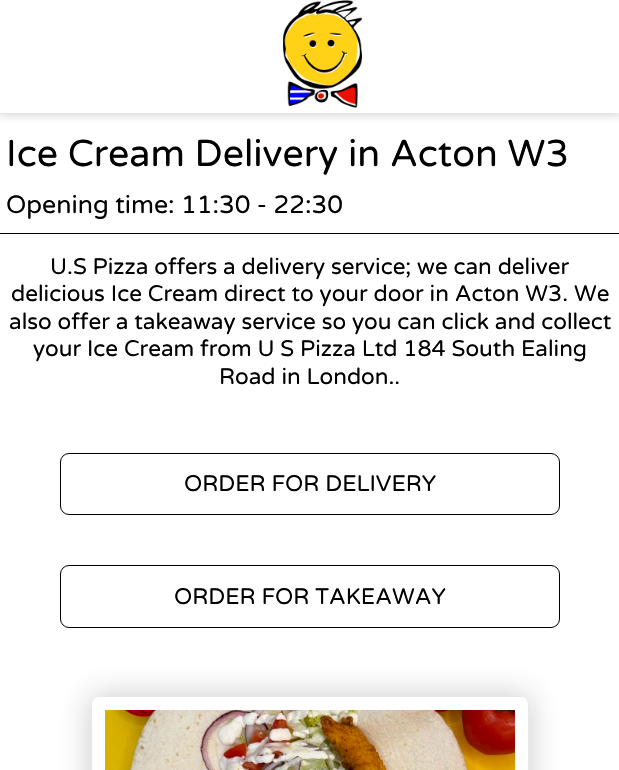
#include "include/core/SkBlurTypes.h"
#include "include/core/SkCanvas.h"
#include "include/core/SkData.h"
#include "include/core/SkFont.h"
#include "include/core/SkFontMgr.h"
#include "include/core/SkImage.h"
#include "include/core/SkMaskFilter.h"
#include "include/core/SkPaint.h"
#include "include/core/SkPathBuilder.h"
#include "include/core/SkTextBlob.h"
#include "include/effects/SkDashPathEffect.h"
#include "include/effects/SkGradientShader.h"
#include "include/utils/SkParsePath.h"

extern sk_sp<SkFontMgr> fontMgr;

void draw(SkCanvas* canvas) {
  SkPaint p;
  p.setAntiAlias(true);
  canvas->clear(SK_ColorWHITE);
  p.setColor(SkColorSetARGB(64, 53, 53, 53));
  p.setMaskFilter(SkMaskFilter::MakeBlur(kNormal_SkBlurStyle, 5));
  canvas->drawRect(SkRect::MakeLTRB(-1, -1, 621, 114), p);
  p.setMaskFilter(nullptr);
  p.setColor(SK_ColorWHITE);
  canvas->drawRect(SkRect::MakeLTRB(0, 0, 619, 113), p);
  canvas->drawImageRect(SkImages::DeferredFromEncodedData(SkData::MakeFromFileName("images/1.png")), SkRect::MakeLTRB(283, 0, 362, 108), SkSamplingOptions());
  p.setColor(SK_ColorBLACK);
  canvas->drawRect(SkRect::MakeLTRB(0, 233, 619, 234), p);
  p.setStyle(SkPaint::kStroke_Style);
  p.setStrokeWidth(1);
  canvas->drawRoundRect(SkRect::MakeLTRB(60.5f, 453.5f, 559.5f, 514.5f), 8.5f, 8.5f, p);
  canvas->drawRoundRect(SkRect::MakeLTRB(60.5f, 565.5f, 559.5f, 627.5f), 8.5f, 8.5f, p);
  p.setStyle(SkPaint::kFill_Style);
  p.setColor(SkColorSetARGB(64, 53, 53, 53));
  p.setMaskFilter(SkMaskFilter::MakeBlur(kNormal_SkBlurStyle, 15.5f));
  canvas->drawRoundRect(SkRect::MakeLTRB(90, 695, 530, 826), 9, 9, p);
  p.setMaskFilter(nullptr);
  p.setColor(SK_ColorWHITE);
  canvas->drawPath(SkPathBuilder().moveTo(99, 696).lineTo(521, 696).cubicTo(525.5f, 696, 529, 699.5f, 529, 704).lineTo(529, 770).lineTo(91, 770).lineTo(91, 704).cubicTo(91, 699.5f, 94.5f, 696, 99, 696).close().detach(), p);
  p.setStyle(SkPaint::kStroke_Style);
  p.setColor(SkColorSetRGB(232, 232, 232));
  canvas->drawRoundRect(SkRect::MakeLTRB(91.5f, 696.5f, 528.5f, 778.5f), 7.5f, 7.5f, p);
  canvas->drawImageRect(SkImages::DeferredFromEncodedData(SkData::MakeFromFileName("images/2.png")), SkRect::MakeLTRB(105, 710, 515, 770), SkSamplingOptions());
  SkFont font1(fontMgr->matchFamilyStyle("Varela Round", SkFontStyle::Normal()), 37.5f);
  font1.setSubpixel(true);
  p.setStyle(SkPaint::kFill_Style);
  p.setColor(SK_ColorBLACK);
  canvas->drawString("Ice Cream Delivery in Acton W3", 6, 166, font1, p);
  SkFont font2(fontMgr->matchFamilyStyle("Varela Round", SkFontStyle::Normal()), 25);
  font2.setSubpixel(true);
  canvas->drawString("Opening time: 11:30 - 22:30", 6, 213, font2, p);
  SkFont font3(fontMgr->matchFamilyStyle("Varela Round", SkFontStyle::Normal()), 22.5f);
  font3.setSubpixel(true);
  canvas->drawString("U.S Pizza offers a delivery service; we can deliver", 50, 274, font3, p);
  canvas->drawString("delicious Ice Cream direct to your door in Acton W3. We", 11, 301, font3, p);
  canvas->drawString("also offer a takeaway service so you can click and collect", 9, 329, font3, p);
  canvas->drawString("your Ice Cream from U S Pizza Ltd 184 South Ealing", 33, 356, font3, p);
  canvas->drawString("Road in London..", 219, 384, font3, p);
  canvas->drawString("ORDER FOR DELIVERY", 184, 491, font3, p);
  canvas->drawString("ORDER FOR TAKEAWAY", 174, 604, font3, p);
}
